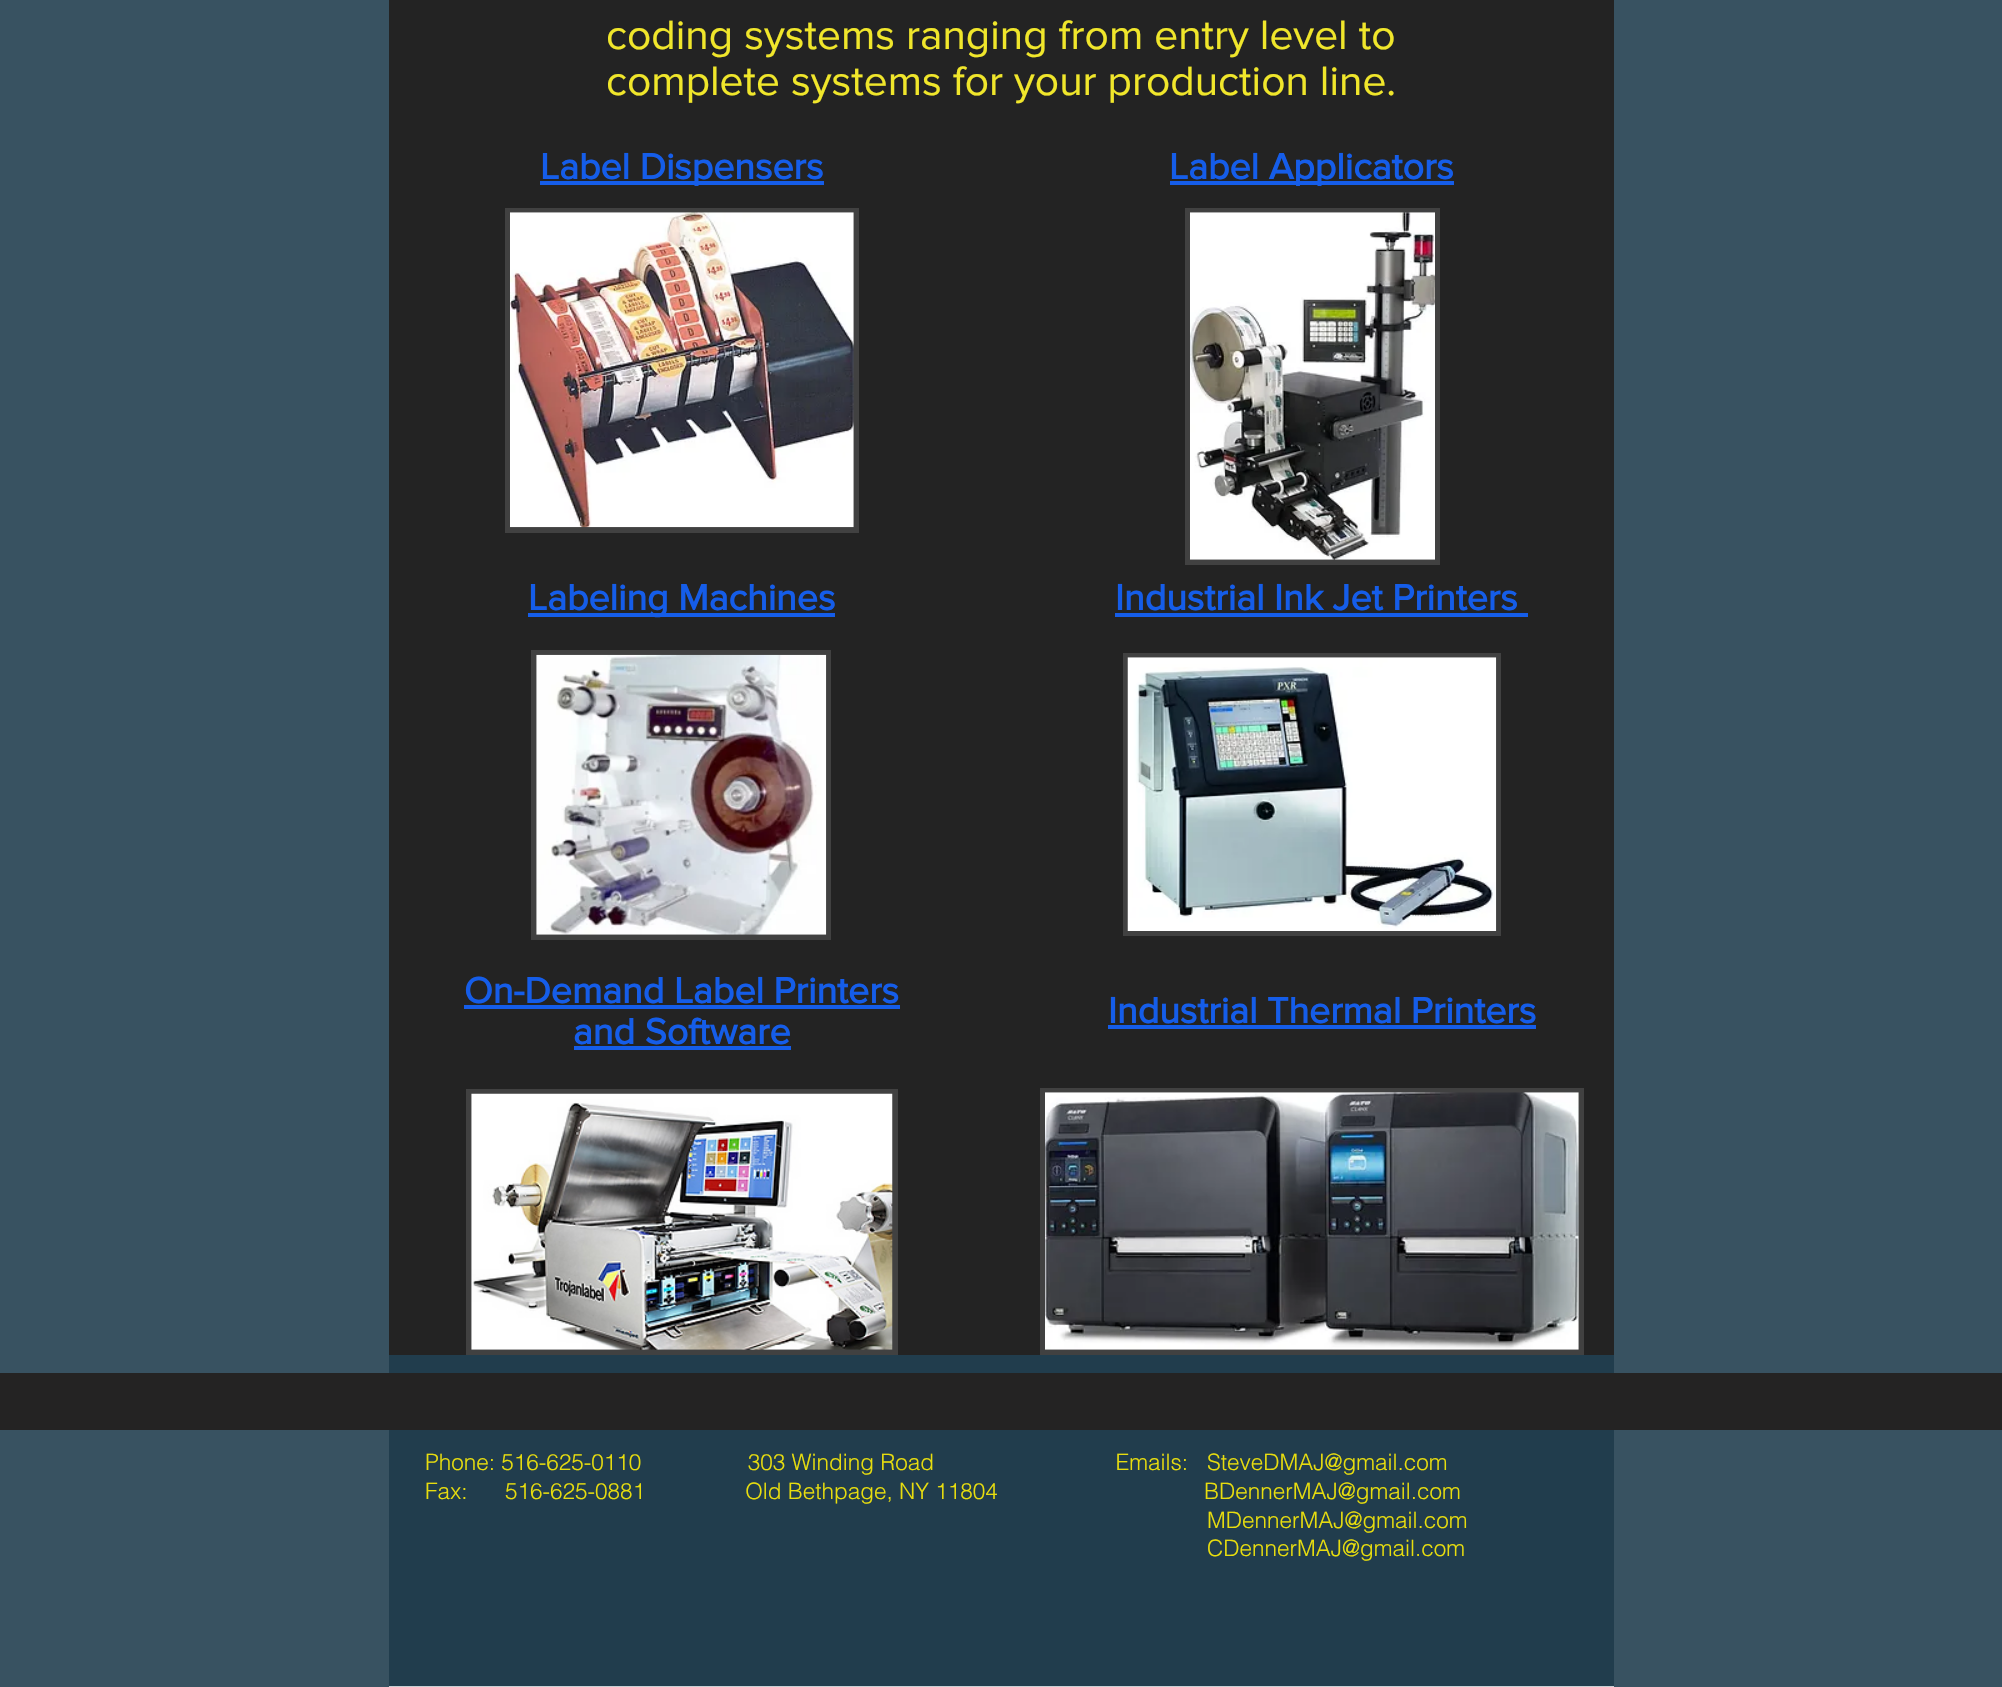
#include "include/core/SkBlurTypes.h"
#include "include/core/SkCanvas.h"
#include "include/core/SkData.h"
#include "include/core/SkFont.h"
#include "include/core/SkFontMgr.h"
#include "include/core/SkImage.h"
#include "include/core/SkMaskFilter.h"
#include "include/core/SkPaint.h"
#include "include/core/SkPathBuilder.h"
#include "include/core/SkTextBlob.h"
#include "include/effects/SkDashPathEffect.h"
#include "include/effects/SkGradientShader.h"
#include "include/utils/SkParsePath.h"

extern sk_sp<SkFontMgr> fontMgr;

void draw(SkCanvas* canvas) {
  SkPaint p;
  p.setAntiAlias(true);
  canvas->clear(SkColorSetRGB(56, 82, 97));
  p.setColor(SkColorSetRGB(35, 35, 35));
  canvas->drawRect(SkRect::MakeLTRB(389, 0, 1614, 1355), p);
  p.setColor(SkColorSetRGB(21, 93, 233));
  canvas->drawRect(SkRect::MakeLTRB(540, 181, 824, 185), p);
  canvas->drawRect(SkRect::MakeLTRB(1170, 181, 1454, 185), p);
  p.setColor(SkColorSetRGB(65, 65, 65));
  canvas->drawRect(SkRect::MakeLTRB(505, 208, 859, 533), p);
  canvas->drawImageRect(SkImages::DeferredFromEncodedData(SkData::MakeFromFileName("images/1.png")), SkRect::MakeLTRB(510, 212, 854, 528), SkSamplingOptions());
  canvas->drawRect(SkRect::MakeLTRB(1185, 208, 1440, 565), p);
  canvas->drawImageRect(SkImages::DeferredFromEncodedData(SkData::MakeFromFileName("images/2.png")), SkRect::MakeLTRB(1190, 212, 1435, 560), SkSamplingOptions());
  p.setColor(SkColorSetRGB(21, 93, 233));
  canvas->drawRect(SkRect::MakeLTRB(528, 613, 835, 617), p);
  canvas->drawRect(SkRect::MakeLTRB(1115, 613, 1528, 617), p);
  p.setColor(SkColorSetRGB(65, 65, 65));
  canvas->drawRect(SkRect::MakeLTRB(531, 650, 831, 940), p);
  canvas->drawImageRect(SkImages::DeferredFromEncodedData(SkData::MakeFromFileName("images/3.png")), SkRect::MakeLTRB(536, 654, 827, 935), SkSamplingOptions());
  canvas->drawRect(SkRect::MakeLTRB(1123, 653, 1501, 936), p);
  canvas->drawImageRect(SkImages::DeferredFromEncodedData(SkData::MakeFromFileName("images/4.png")), SkRect::MakeLTRB(1127, 657, 1497, 931), SkSamplingOptions());
  p.setColor(SkColorSetRGB(21, 93, 233));
  canvas->drawRect(SkRect::MakeLTRB(464, 1005, 900, 1009), p);
  canvas->drawRect(SkRect::MakeLTRB(574, 1046, 791, 1050), p);
  canvas->drawRect(SkRect::MakeLTRB(1108, 1025, 1536, 1029), p);
  p.setColor(SkColorSetRGB(65, 65, 65));
  canvas->drawRect(SkRect::MakeLTRB(466, 1089, 898, 1355), p);
  canvas->drawImageRect(SkImages::DeferredFromEncodedData(SkData::MakeFromFileName("images/5.png")), SkRect::MakeLTRB(471, 1093, 893, 1350), SkSamplingOptions());
  canvas->drawRect(SkRect::MakeLTRB(1040, 1088, 1584, 1355), p);
  canvas->drawImageRect(SkImages::DeferredFromEncodedData(SkData::MakeFromFileName("images/6.png")), SkRect::MakeLTRB(1045, 1092, 1579, 1350), SkSamplingOptions());
  p.setColor(SkColorSetRGB(33, 61, 77));
  canvas->drawRect(SkRect::MakeLTRB(389, 1355, 1614, 1686), p);
  p.setColor(SkColorSetRGB(200, 207, 211));
  canvas->drawRect(SkRect::MakeLTRB(389, 1686, 1614, 1687), p);
  p.setColor(SkColorSetRGB(36, 35, 35));
  canvas->drawRect(SkRect::MakeLTRB(0, 1373, 2002, 1430), p);
  SkFont font1(fontMgr->matchFamilyStyle("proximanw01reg", SkFontStyle::Normal()), 42.5f);
  font1.setSubpixel(true);
  p.setColor(SkColorSetRGB(240, 230, 43));
  canvas->drawString("coding systems ranging from entry level to", 606, 49, font1, p);
  canvas->drawString("complete systems for your production line.", 606, 95, font1, p);
  SkFont font2(fontMgr->matchFamilyStyle("proximanw01reg", SkFontStyle::Bold()), 37.5f);
  font2.setSubpixel(true);
  p.setColor(SkColorSetRGB(21, 93, 233));
  canvas->drawString("Label Dispensers", 540, 179, font2, p);
  canvas->drawString("Label Applicators", 1169, 179, font2, p);
  canvas->drawString("Labeling Machines", 528, 610, font2, p);
  canvas->drawString("Industrial Ink Jet Printers", 1115, 610, font2, p);
  canvas->drawString("On-Demand Label Printers", 464, 1003, font2, p);
  canvas->drawString("and Software", 573, 1044, font2, p);
  canvas->drawString("Industrial Thermal Printers", 1108, 1023, font2, p);
  SkFont font3(fontMgr->matchFamilyStyle("helvetica", SkFontStyle(300, SkFontStyle::kNormal_Width, SkFontStyle::kUpright_Slant)), 22.5f);
  font3.setSubpixel(true);
  p.setColor(SkColorSetRGB(232, 221, 14));
  canvas->drawString("Phone: 516-625-0110                 303 Winding Road                             Emails:", 425, 1470, font3, p);
  canvas->drawString("SteveDMAJ@gmail.com", 1207, 1470, font3, p);
  canvas->drawString("Fax:      516-625-0881                Old Bethpage, NY 11804", 425, 1499, font3, p);
  canvas->drawString("BDennerMAJ@gmail.com", 1204, 1499, font3, p);
  canvas->drawString("MDennerMAJ@gmail.com", 1207, 1528, font3, p);
  canvas->drawString("CDennerMAJ@gmail.com", 1207, 1556, font3, p);
}
